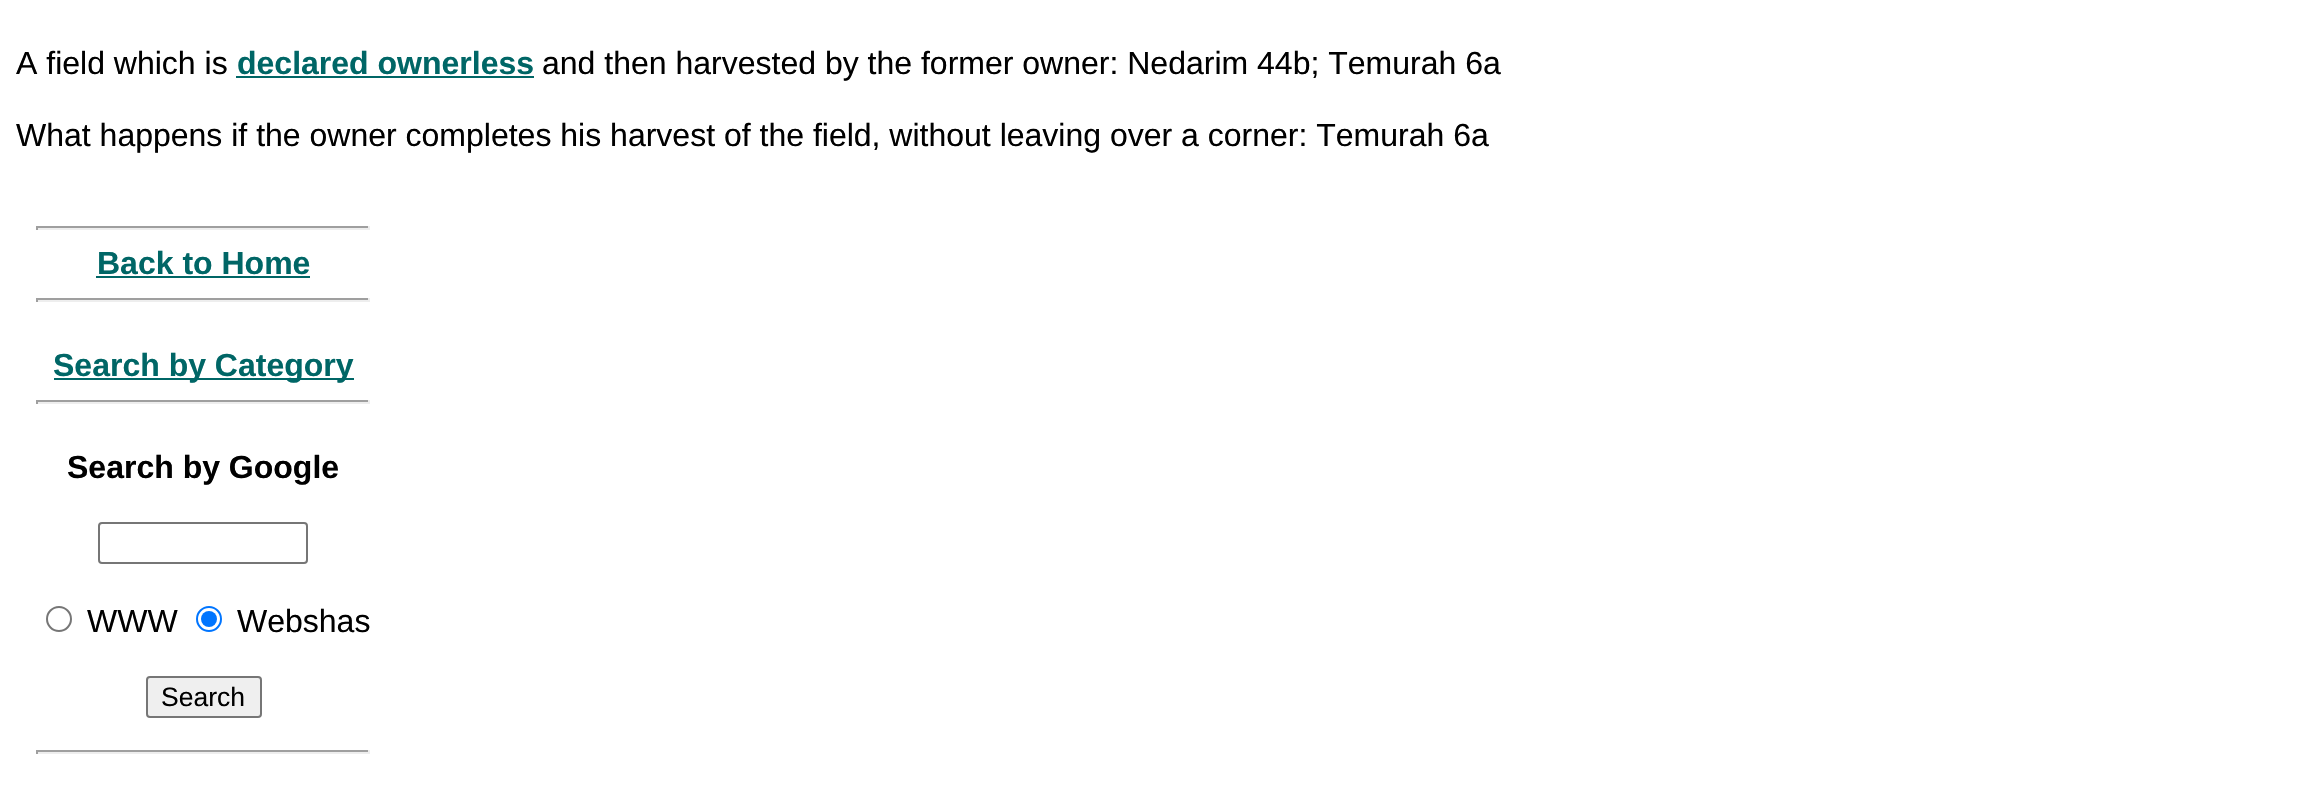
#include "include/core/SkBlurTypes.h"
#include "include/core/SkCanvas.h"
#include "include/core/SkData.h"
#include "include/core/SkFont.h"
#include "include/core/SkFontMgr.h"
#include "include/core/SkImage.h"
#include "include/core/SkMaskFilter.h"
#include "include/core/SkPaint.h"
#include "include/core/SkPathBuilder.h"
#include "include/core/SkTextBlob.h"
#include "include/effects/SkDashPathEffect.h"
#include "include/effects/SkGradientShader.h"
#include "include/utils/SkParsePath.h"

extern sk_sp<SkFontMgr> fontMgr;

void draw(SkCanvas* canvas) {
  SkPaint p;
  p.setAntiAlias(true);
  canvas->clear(SK_ColorWHITE);
  p.setColor(SkColorSetRGB(0, 102, 102));
  canvas->drawRect(SkRect::MakeLTRB(236, 76, 534, 78), p);
  p.setColor(SkColorSetRGB(159, 159, 159));
  canvas->drawRect(SkRect::MakeLTRB(36, 226, 370, 228), p);
  p.setColor(SkColorSetRGB(238, 238, 238));
  canvas->drawRect(SkRect::MakeLTRB(368, 226, 370, 230), p);
  canvas->drawRect(SkRect::MakeLTRB(36, 228, 370, 230), p);
  p.setColor(SkColorSetRGB(159, 159, 159));
  canvas->drawRect(SkRect::MakeLTRB(36, 226, 38, 230), p);
  p.setColor(SkColorSetRGB(0, 102, 102));
  canvas->drawRect(SkRect::MakeLTRB(96, 276, 310, 278), p);
  p.setColor(SkColorSetRGB(159, 159, 159));
  canvas->drawRect(SkRect::MakeLTRB(36, 298, 370, 300), p);
  p.setColor(SkColorSetRGB(238, 238, 238));
  canvas->drawRect(SkRect::MakeLTRB(368, 298, 370, 302), p);
  canvas->drawRect(SkRect::MakeLTRB(36, 300, 370, 302), p);
  p.setColor(SkColorSetRGB(159, 159, 159));
  canvas->drawRect(SkRect::MakeLTRB(36, 298, 38, 302), p);
  p.setColor(SkColorSetRGB(0, 102, 102));
  canvas->drawRect(SkRect::MakeLTRB(54, 378, 354, 380), p);
  p.setColor(SkColorSetRGB(159, 159, 159));
  canvas->drawRect(SkRect::MakeLTRB(36, 400, 370, 402), p);
  p.setColor(SkColorSetRGB(238, 238, 238));
  canvas->drawRect(SkRect::MakeLTRB(368, 400, 370, 404), p);
  canvas->drawRect(SkRect::MakeLTRB(36, 402, 370, 404), p);
  p.setColor(SkColorSetRGB(159, 159, 159));
  canvas->drawRect(SkRect::MakeLTRB(36, 400, 38, 404), p);
  p.setStyle(SkPaint::kStroke_Style);
  p.setStrokeWidth(2);
  p.setColor(SkColorSetRGB(118, 118, 118));
  canvas->drawRoundRect(SkRect::MakeLTRB(99, 523, 307, 563), 3, 3, p);
  canvas->drawCircle(59, 619, 12, p);
  p.setColor(SkColorSetRGB(0, 117, 255));
  canvas->drawCircle(209, 619, 12, p);
  p.setStyle(SkPaint::kFill_Style);
  canvas->drawCircle(209, 619, 8, p);
  p.setColor(SkColorSetRGB(239, 239, 239));
  canvas->drawRoundRect(SkRect::MakeLTRB(147, 677, 261, 717), 3, 3, p);
  p.setStyle(SkPaint::kStroke_Style);
  p.setColor(SkColorSetRGB(118, 118, 118));
  canvas->drawRoundRect(SkRect::MakeLTRB(147, 677, 261, 717), 3, 3, p);
  p.setStyle(SkPaint::kFill_Style);
  p.setColor(SkColorSetRGB(159, 159, 159));
  canvas->drawRect(SkRect::MakeLTRB(36, 750, 370, 752), p);
  p.setColor(SkColorSetRGB(238, 238, 238));
  canvas->drawRect(SkRect::MakeLTRB(368, 750, 370, 754), p);
  canvas->drawRect(SkRect::MakeLTRB(36, 752, 370, 754), p);
  p.setColor(SkColorSetRGB(159, 159, 159));
  canvas->drawRect(SkRect::MakeLTRB(36, 750, 38, 754), p);
  SkFont font1(fontMgr->matchFamilyStyle("Liberation Sans", SkFontStyle::Normal()), 32);
  font1.setSubpixel(true);
  p.setColor(SK_ColorBLACK);
  canvas->drawString("A field which is", 16, 74, font1, p);
  SkFont font2(fontMgr->matchFamilyStyle("Liberation Sans", SkFontStyle::Bold()), 32);
  font2.setSubpixel(true);
  p.setColor(SkColorSetRGB(0, 102, 102));
  canvas->drawString("declared ownerless", 237, 74, font2, p);
  p.setColor(SK_ColorBLACK);
  canvas->drawString("and then harvested by the former owner: Nedarim 44b; Temurah 6a", 542, 74, font1, p);
  canvas->drawString("What happens if the owner completes his harvest of the field, without leaving over a corner: Temurah 6a", 16, 146, font1, p);
  p.setColor(SkColorSetRGB(0, 102, 102));
  canvas->drawString("Back to Home", 97, 274, font2, p);
  canvas->drawString("Search by Category", 53, 376, font2, p);
  p.setColor(SK_ColorBLACK);
  canvas->drawString("Search by Google", 67, 478, font2, p);
  canvas->drawString("WWW", 87, 632, font1, p);
  canvas->drawString("Webshas", 237, 632, font1, p);
  SkFont font3(fontMgr->matchFamilyStyle("Liberation Sans", SkFontStyle::Normal()), 26.5f);
  font3.setSubpixel(true);
  canvas->drawString("Search", 161, 706, font3, p);
}
